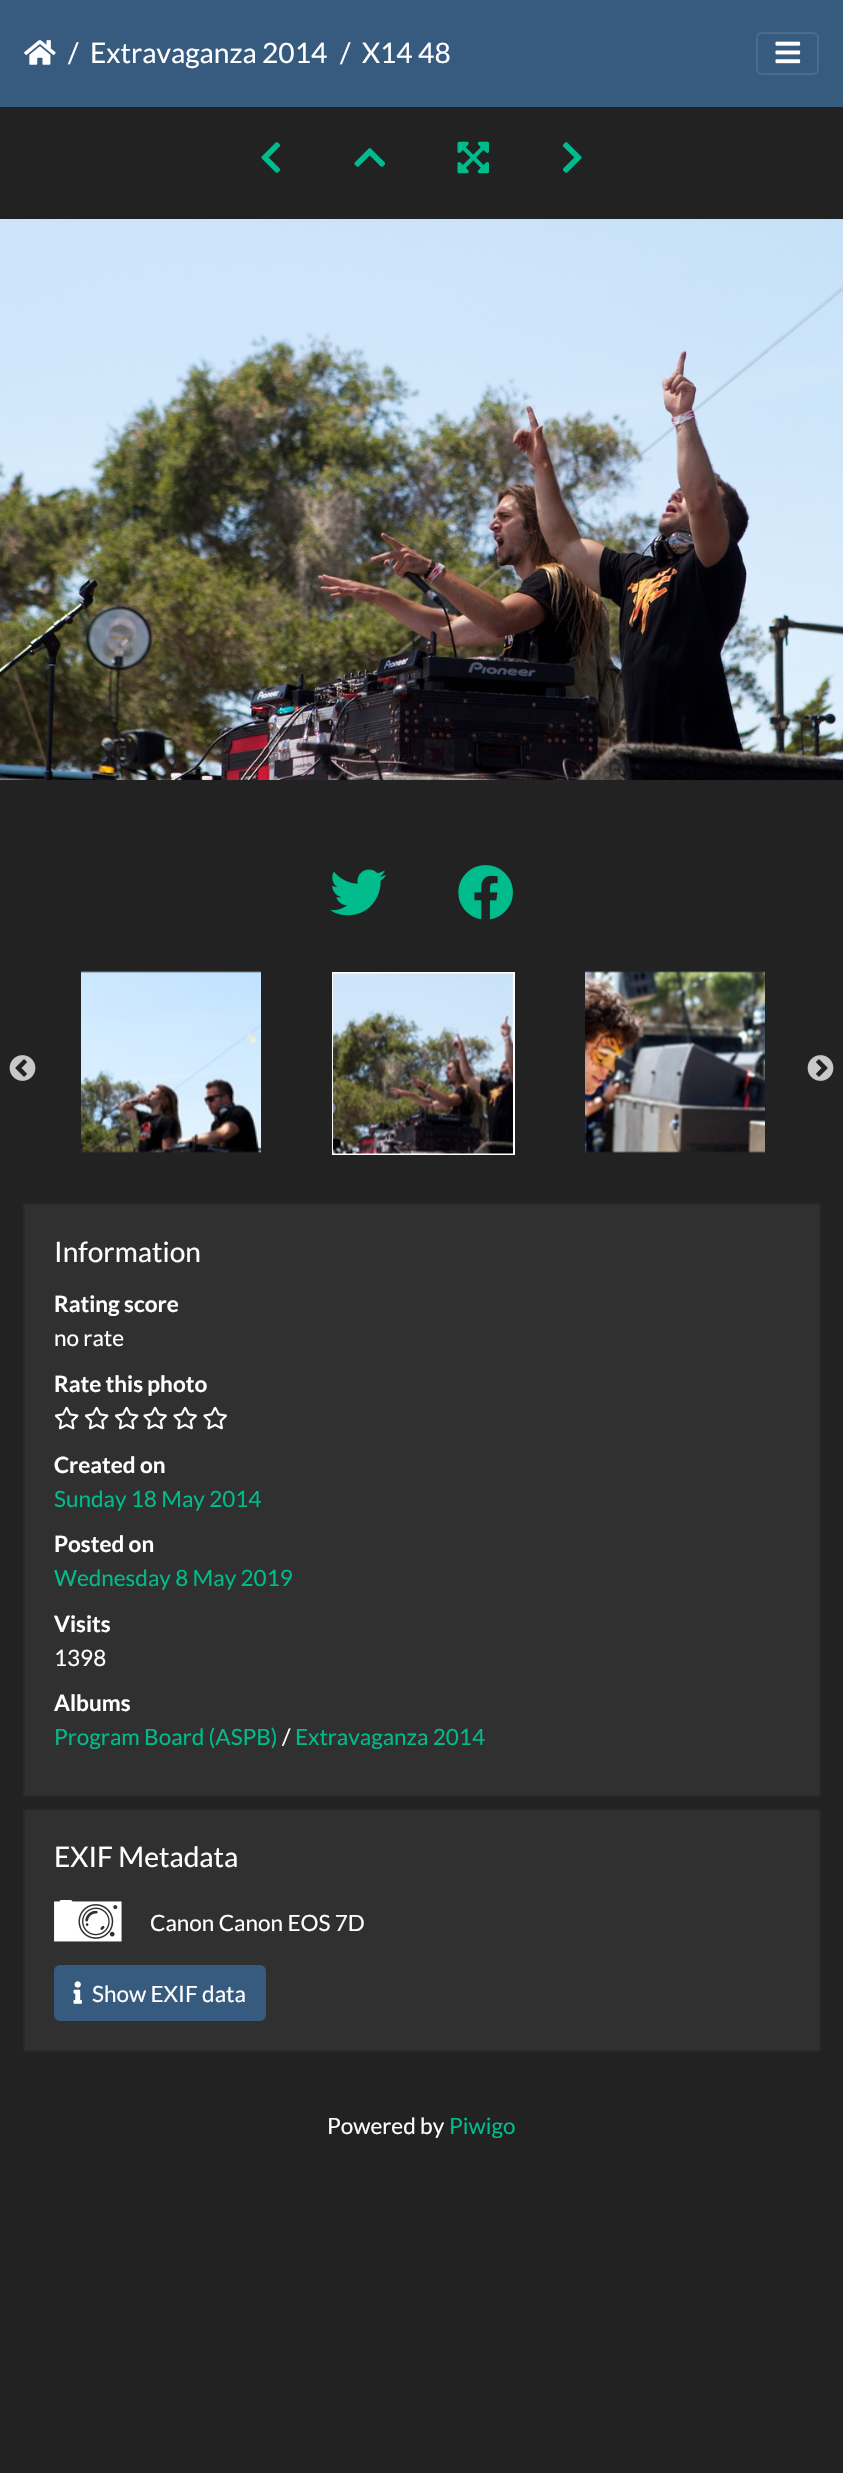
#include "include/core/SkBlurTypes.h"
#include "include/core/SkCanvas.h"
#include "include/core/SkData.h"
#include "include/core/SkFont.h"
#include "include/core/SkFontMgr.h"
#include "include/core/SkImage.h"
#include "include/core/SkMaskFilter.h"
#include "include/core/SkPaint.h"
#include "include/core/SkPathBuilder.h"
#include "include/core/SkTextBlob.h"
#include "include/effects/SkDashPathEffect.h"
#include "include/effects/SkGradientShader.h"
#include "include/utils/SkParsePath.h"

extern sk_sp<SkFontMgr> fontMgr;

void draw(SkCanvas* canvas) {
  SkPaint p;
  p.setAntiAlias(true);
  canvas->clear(SkColorSetRGB(34, 34, 34));
  p.setColor(SkColorSetRGB(55, 90, 127));
  canvas->drawRect(SkRect::MakeLTRB(0, 0, 843, 107), p);
  canvas->drawImageRect(SkImages::DeferredFromEncodedData(SkData::MakeFromFileName("images/1.png")), SkRect::MakeLTRB(24, 40, 56, 65), SkSamplingOptions());
  p.setStyle(SkPaint::kStroke_Style);
  p.setStrokeWidth(2);
  p.setColor(SkColorSetRGB(75, 107, 140));
  canvas->drawRoundRect(SkRect::MakeLTRB(757, 33, 818, 74), 5, 5, p);
  canvas->drawImageRect(SkImages::DeferredFromEncodedData(SkData::MakeFromFileName("images/2.png")), SkRect::MakeLTRB(775, 41, 801, 64), SkSamplingOptions());
  canvas->drawImageRect(SkImages::DeferredFromEncodedData(SkData::MakeFromFileName("images/3.png")), SkRect::MakeLTRB(261, 142, 280, 173), SkSamplingOptions());
  canvas->drawImageRect(SkImages::DeferredFromEncodedData(SkData::MakeFromFileName("images/4.png")), SkRect::MakeLTRB(354, 148, 386, 167), SkSamplingOptions());
  canvas->drawImageRect(SkImages::DeferredFromEncodedData(SkData::MakeFromFileName("images/5.png")), SkRect::MakeLTRB(457, 141, 489, 174), SkSamplingOptions());
  canvas->drawImageRect(SkImages::DeferredFromEncodedData(SkData::MakeFromFileName("images/6.png")), SkRect::MakeLTRB(563, 142, 582, 173), SkSamplingOptions());
  canvas->drawImageRect(SkImages::DeferredFromEncodedData(SkData::MakeFromFileName("images/7.png")), SkRect::MakeLTRB(0, 219, 843, 780), SkSamplingOptions());
  canvas->drawImageRect(SkImages::DeferredFromEncodedData(SkData::MakeFromFileName("images/8.png")), SkRect::MakeLTRB(330, 869, 387, 916), SkSamplingOptions());
  canvas->drawImageRect(SkImages::DeferredFromEncodedData(SkData::MakeFromFileName("images/9.png")), SkRect::MakeLTRB(458, 865, 513, 920), SkSamplingOptions());
  canvas->drawImageRect(SkImages::DeferredFromEncodedData(SkData::MakeFromFileName("images/10.png")), SkRect::MakeLTRB(9, 1055, 36, 1081), SkSamplingOptions());
  canvas->drawImageRect(SkImages::DeferredFromEncodedData(SkData::MakeFromFileName("images/11.png")), SkRect::MakeLTRB(81, 971, 261, 1153), SkSamplingOptions());
  p.setColor(SK_ColorWHITE);
  canvas->drawRect(SkRect::MakeLTRB(333, 973, 514, 1154), p);
  canvas->drawImageRect(SkImages::DeferredFromEncodedData(SkData::MakeFromFileName("images/12.png")), SkRect::MakeLTRB(333, 973, 513, 1154), SkSamplingOptions());
  canvas->drawImageRect(SkImages::DeferredFromEncodedData(SkData::MakeFromFileName("images/13.png")), SkRect::MakeLTRB(585, 971, 765, 1153), SkSamplingOptions());
  canvas->drawImageRect(SkImages::DeferredFromEncodedData(SkData::MakeFromFileName("images/14.png")), SkRect::MakeLTRB(807, 1055, 834, 1081), SkSamplingOptions());
  p.setStyle(SkPaint::kFill_Style);
  p.setColor(SkColorSetRGB(48, 48, 48));
  canvas->drawRoundRect(SkRect::MakeLTRB(23, 1203, 821, 1797), 3, 3, p);
  p.setStyle(SkPaint::kStroke_Style);
  p.setColor(SkColorSetARGB(31, 0, 0, 0));
  canvas->drawRoundRect(SkRect::MakeLTRB(24, 1204, 820, 1796), 2, 2, p);
  canvas->drawImageRect(SkImages::DeferredFromEncodedData(SkData::MakeFromFileName("images/15.png")), SkRect::MakeLTRB(54, 1406, 79, 1430), SkSamplingOptions());
  canvas->drawImageRect(SkImages::DeferredFromEncodedData(SkData::MakeFromFileName("images/15.png")), SkRect::MakeLTRB(84, 1406, 109, 1430), SkSamplingOptions());
  canvas->drawImageRect(SkImages::DeferredFromEncodedData(SkData::MakeFromFileName("images/15.png")), SkRect::MakeLTRB(114, 1406, 139, 1430), SkSamplingOptions());
  canvas->drawImageRect(SkImages::DeferredFromEncodedData(SkData::MakeFromFileName("images/16.png")), SkRect::MakeLTRB(143, 1406, 167, 1430), SkSamplingOptions());
  canvas->drawImageRect(SkImages::DeferredFromEncodedData(SkData::MakeFromFileName("images/16.png")), SkRect::MakeLTRB(173, 1406, 197, 1430), SkSamplingOptions());
  canvas->drawImageRect(SkImages::DeferredFromEncodedData(SkData::MakeFromFileName("images/16.png")), SkRect::MakeLTRB(203, 1406, 227, 1430), SkSamplingOptions());
  p.setStyle(SkPaint::kFill_Style);
  p.setColor(SkColorSetRGB(48, 48, 48));
  canvas->drawRoundRect(SkRect::MakeLTRB(23, 1809, 821, 2052), 3, 3, p);
  p.setStyle(SkPaint::kStroke_Style);
  p.setColor(SkColorSetARGB(31, 0, 0, 0));
  canvas->drawRoundRect(SkRect::MakeLTRB(24, 1810, 820, 2051), 2, 2, p);
  canvas->drawImageRect(SkImages::DeferredFromEncodedData(SkData::MakeFromFileName("images/17.png")), SkRect::MakeLTRB(54, 1900, 122, 1942), SkSamplingOptions());
  p.setStyle(SkPaint::kFill_Style);
  p.setColor(SkColorSetRGB(55, 90, 127));
  canvas->drawRoundRect(SkRect::MakeLTRB(55, 1966, 265, 2020), 5, 5, p);
  p.setStyle(SkPaint::kStroke_Style);
  canvas->drawRoundRect(SkRect::MakeLTRB(55, 1966, 265, 2020), 5, 5, p);
  canvas->drawImageRect(SkImages::DeferredFromEncodedData(SkData::MakeFromFileName("images/18.png")), SkRect::MakeLTRB(73, 1981, 82, 2004), SkSamplingOptions());
  SkFont font1(fontMgr->matchFamilyStyle("Lato", SkFontStyle::Normal()), 28.1f);
  font1.setSubpixel(true);
  p.setStyle(SkPaint::kFill_Style);
  p.setColor(SK_ColorWHITE);
  canvas->drawString("/", 68, 63, font1, p);
  canvas->drawString("Extravaganza 2014", 90, 63, font1, p);
  canvas->drawString("/", 340, 63, font1, p);
  canvas->drawString("X14 48", 362, 63, font1, p);
  canvas->drawString("Information", 54, 1262, font1, p);
  SkFont font2(fontMgr->matchFamilyStyle("Lato", SkFontStyle::Bold()), 22.5f);
  font2.setSubpixel(true);
  canvas->drawString("Rating score", 54, 1312, font2, p);
  SkFont font3(fontMgr->matchFamilyStyle("Lato", SkFontStyle::Normal()), 22.5f);
  font3.setSubpixel(true);
  canvas->drawString("no rate", 54, 1346, font3, p);
  canvas->drawString("Rate this photo", 54, 1392, font2, p);
  canvas->drawString("Created on", 54, 1473, font2, p);
  p.setColor(SkColorSetRGB(0, 188, 140));
  canvas->drawString("Sunday 18 May 2014", 54, 1507, font3, p);
  p.setColor(SK_ColorWHITE);
  canvas->drawString("Posted on", 54, 1552, font2, p);
  p.setColor(SkColorSetRGB(0, 188, 140));
  canvas->drawString("Wednesday 8 May 2019", 54, 1586, font3, p);
  p.setColor(SK_ColorWHITE);
  canvas->drawString("Visits", 54, 1632, font2, p);
  canvas->drawString("1398", 54, 1666, font3, p);
  canvas->drawString("Albums", 54, 1711, font2, p);
  p.setColor(SkColorSetRGB(0, 188, 140));
  canvas->drawString("Program Board (ASPB)", 54, 1745, font3, p);
  p.setColor(SK_ColorWHITE);
  canvas->drawString("/", 282, 1745, font3, p);
  p.setColor(SkColorSetRGB(0, 188, 140));
  canvas->drawString("Extravaganza 2014", 295, 1745, font3, p);
  p.setColor(SK_ColorWHITE);
  canvas->drawString("EXIF Metadata", 54, 1867, font1, p);
  canvas->drawString("Canon Canon EOS 7D", 150, 1931, font3, p);
  canvas->drawString("Show EXIF data", 92, 2002, font3, p);
  canvas->drawString("Powered by", 327, 2134, font3, p);
  p.setColor(SkColorSetRGB(0, 188, 140));
  canvas->drawString("Piwigo", 449, 2134, font3, p);
}
